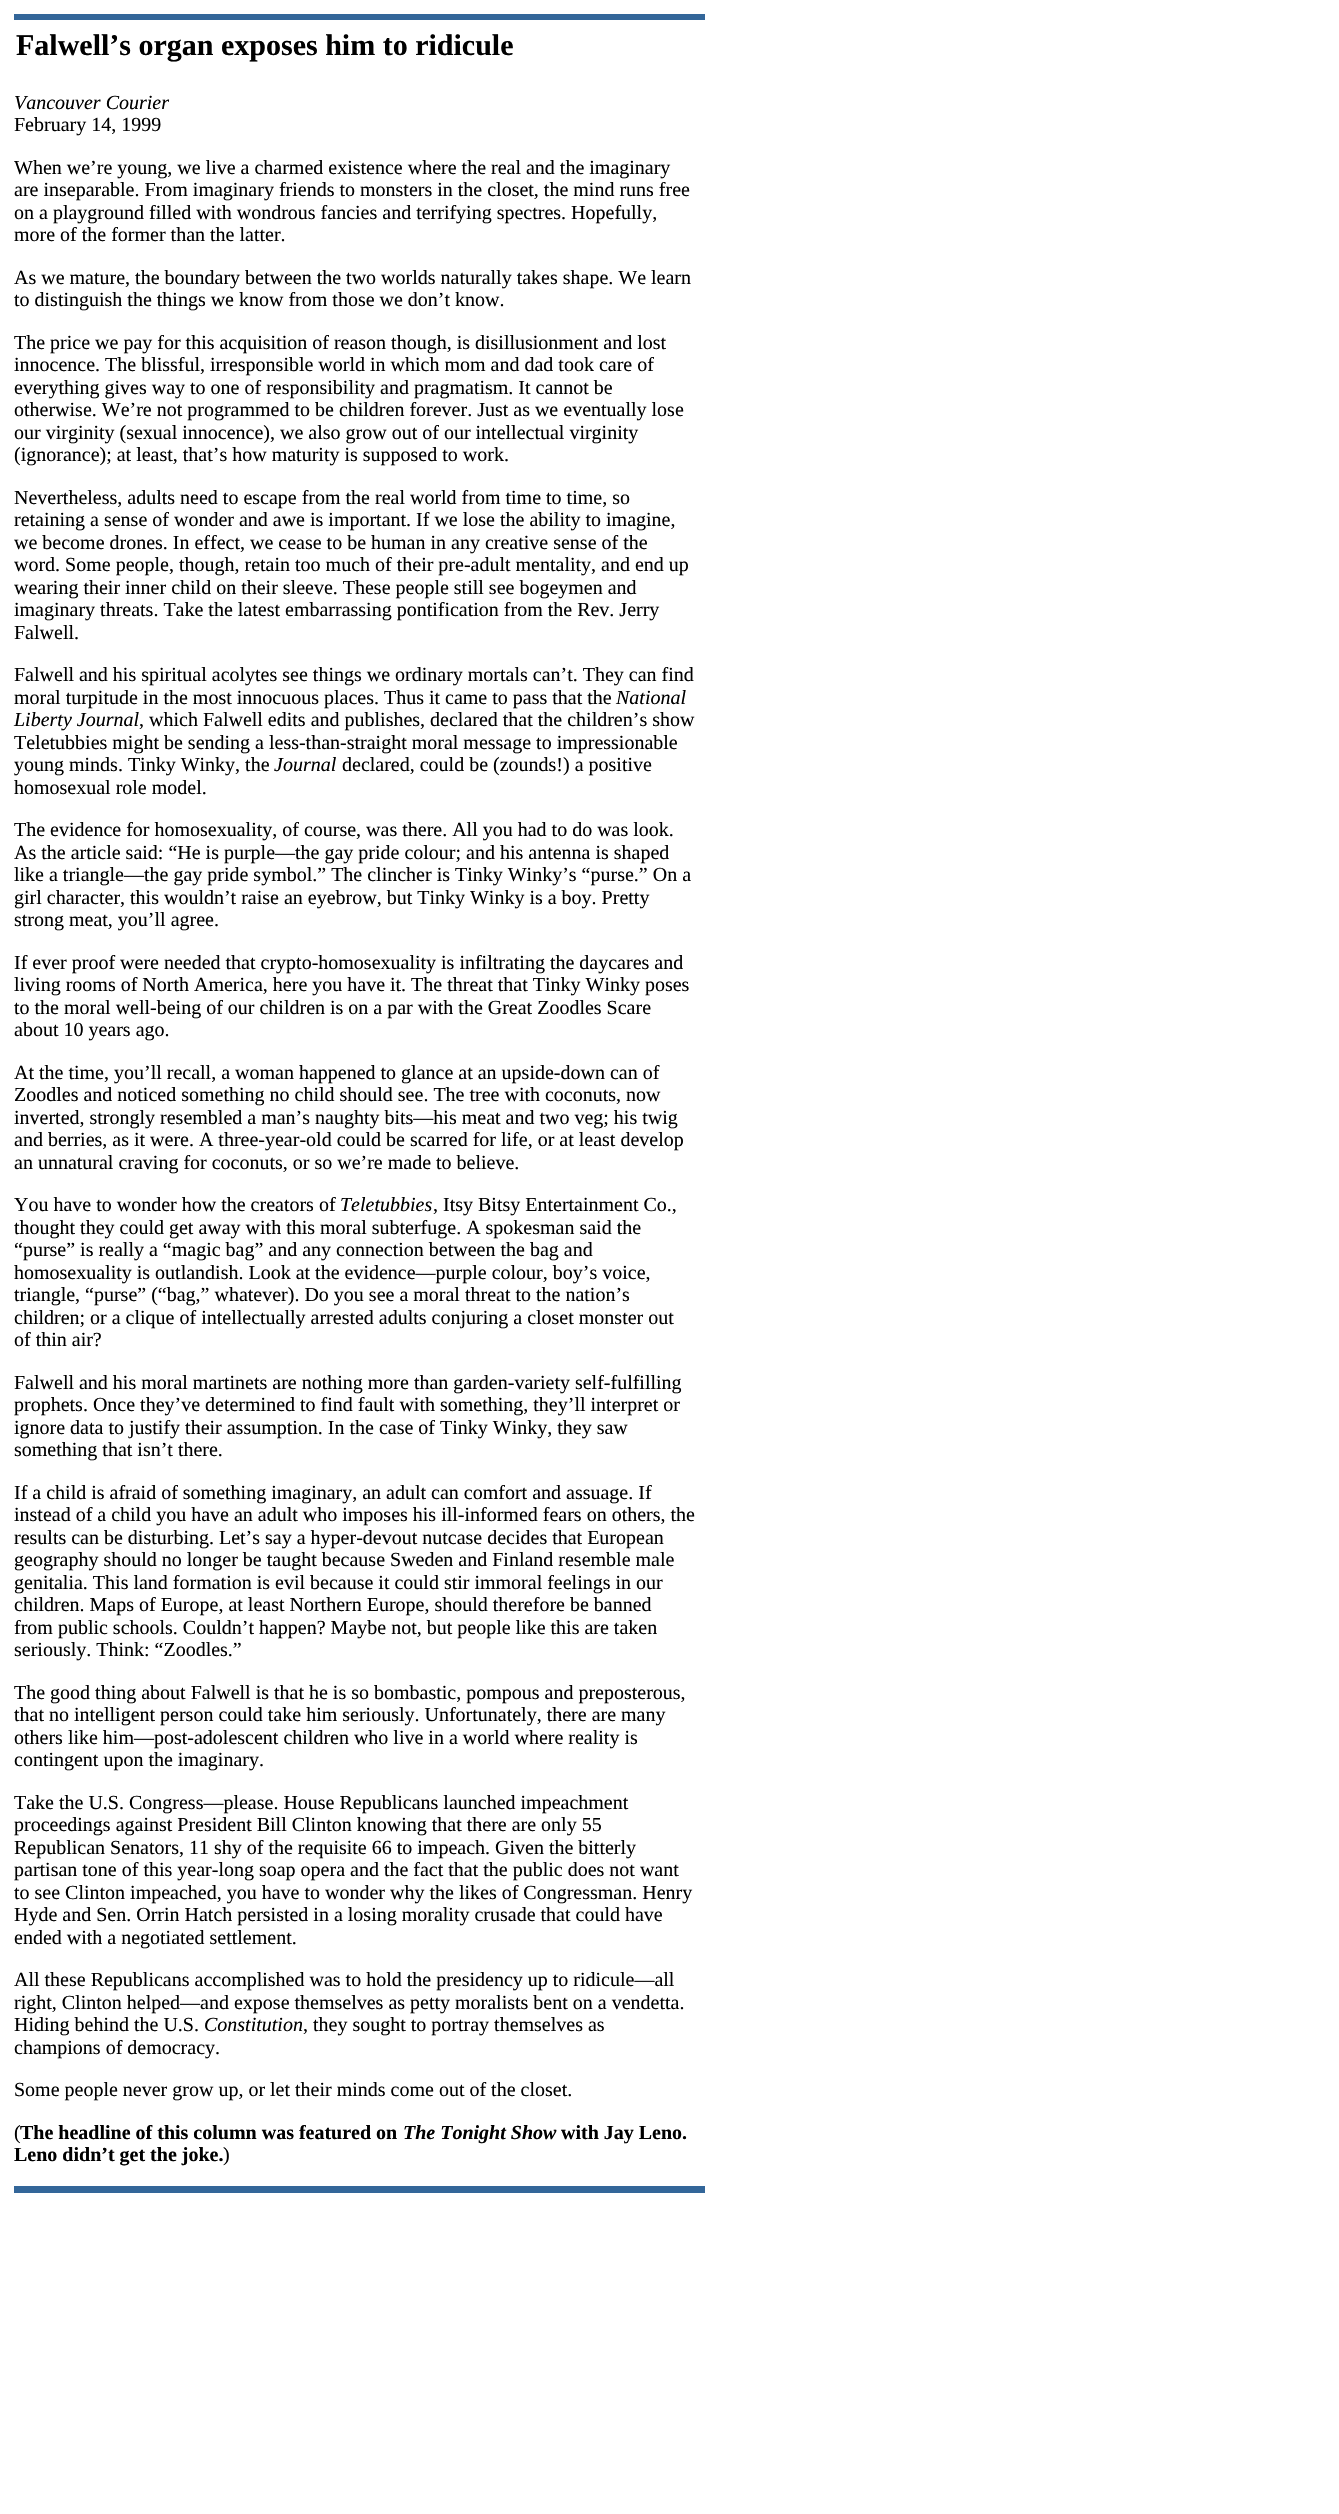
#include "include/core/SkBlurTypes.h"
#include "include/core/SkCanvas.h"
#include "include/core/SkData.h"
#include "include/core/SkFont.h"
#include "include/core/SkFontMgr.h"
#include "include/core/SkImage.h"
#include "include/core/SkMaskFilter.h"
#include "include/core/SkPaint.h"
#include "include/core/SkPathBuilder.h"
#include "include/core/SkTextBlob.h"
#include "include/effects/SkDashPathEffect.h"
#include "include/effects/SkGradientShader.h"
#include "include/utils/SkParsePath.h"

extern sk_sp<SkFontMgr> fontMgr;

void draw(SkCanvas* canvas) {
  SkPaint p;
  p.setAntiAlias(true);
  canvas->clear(SK_ColorWHITE);
  p.setColor(SkColorSetRGB(51, 102, 153));
  canvas->drawRect(SkRect::MakeLTRB(14, 14, 705, 20), p);
  canvas->drawRect(SkRect::MakeLTRB(14, 2186, 705, 2193), p);
  SkFont font1(fontMgr->matchFamilyStyle("Liberation Serif", SkFontStyle::Bold()), 30);
  font1.setSubpixel(true);
  p.setColor(SK_ColorBLACK);
  canvas->drawString("Falwell’s organ exposes him to ridicule", 16, 55, font1, p);
  SkFont font2(fontMgr->matchFamilyStyle("Liberation Serif", SkFontStyle::Italic()), 20);
  font2.setSubpixel(true);
  canvas->drawString("Vancouver Courier", 14, 109, font2, p);
  SkFont font3(fontMgr->matchFamilyStyle("Liberation Serif", SkFontStyle::Normal()), 20);
  font3.setSubpixel(true);
  canvas->drawString("February 14, 1999", 14, 131, font3, p);
  canvas->drawString("When we’re young, we live a charmed existence where the real and the imaginary", 14, 174, font3, p);
  canvas->drawString("are inseparable. From imaginary friends to monsters in the closet, the mind runs free", 14, 196, font3, p);
  canvas->drawString("on a playground filled with wondrous fancies and terrifying spectres. Hopefully,", 14, 219, font3, p);
  canvas->drawString("more of the former than the latter.", 14, 241, font3, p);
  canvas->drawString("As we mature, the boundary between the two worlds naturally takes shape. We learn", 14, 284, font3, p);
  canvas->drawString("to distinguish the things we know from those we don’t know.", 14, 306, font3, p);
  canvas->drawString("The price we pay for this acquisition of reason though, is disillusionment and lost", 14, 349, font3, p);
  canvas->drawString("innocence. The blissful, irresponsible world in which mom and dad took care of", 14, 371, font3, p);
  canvas->drawString("everything gives way to one of responsibility and pragmatism. It cannot be", 14, 394, font3, p);
  canvas->drawString("otherwise. We’re not programmed to be children forever. Just as we eventually lose", 14, 416, font3, p);
  canvas->drawString("our virginity (sexual innocence), we also grow out of our intellectual virginity", 14, 439, font3, p);
  canvas->drawString("(ignorance); at least, that’s how maturity is supposed to work.", 14, 461, font3, p);
  canvas->drawString("Nevertheless, adults need to escape from the real world from time to time, so", 14, 504, font3, p);
  canvas->drawString("retaining a sense of wonder and awe is important. If we lose the ability to imagine,", 14, 526, font3, p);
  canvas->drawString("we become drones. In effect, we cease to be human in any creative sense of the", 14, 549, font3, p);
  canvas->drawString("word. Some people, though, retain too much of their pre-adult mentality, and end up", 14, 571, font3, p);
  canvas->drawString("wearing their inner child on their sleeve. These people still see bogeymen and", 14, 594, font3, p);
  canvas->drawString("imaginary threats. Take the latest embarrassing pontification from the Rev. Jerry", 14, 616, font3, p);
  canvas->drawString("Falwell.", 14, 639, font3, p);
  canvas->drawString("Falwell and his spiritual acolytes see things we ordinary mortals can’t. They can find", 14, 681, font3, p);
  canvas->drawString("moral turpitude in the most innocuous places. Thus it came to pass that the", 14, 704, font3, p);
  canvas->drawString("National", 616, 704, font2, p);
  canvas->drawString("Liberty Journal", 14, 726, font2, p);
  canvas->drawString(", which Falwell edits and publishes, declared that the children’s show", 139, 726, font3, p);
  canvas->drawString("Teletubbies might be sending a less-than-straight moral message to impressionable", 14, 749, font3, p);
  canvas->drawString("young minds. Tinky Winky, the", 14, 771, font3, p);
  canvas->drawString("Journal", 274, 771, font2, p);
  canvas->drawString("declared, could be (zounds!) a positive", 342, 771, font3, p);
  canvas->drawString("homosexual role model.", 14, 794, font3, p);
  canvas->drawString("The evidence for homosexuality, of course, was there. All you had to do was look.", 14, 836, font3, p);
  canvas->drawString("As the article said: “He is purple—the gay pride colour; and his antenna is shaped", 14, 859, font3, p);
  canvas->drawString("like a triangle—the gay pride symbol.” The clincher is Tinky Winky’s “purse.” On a", 14, 881, font3, p);
  canvas->drawString("girl character, this wouldn’t raise an eyebrow, but Tinky Winky is a boy. Pretty", 14, 904, font3, p);
  canvas->drawString("strong meat, you’ll agree.", 14, 926, font3, p);
  canvas->drawString("If ever proof were needed that crypto-homosexuality is infiltrating the daycares and", 14, 969, font3, p);
  canvas->drawString("living rooms of North America, here you have it. The threat that Tinky Winky poses", 14, 991, font3, p);
  canvas->drawString("to the moral well-being of our children is on a par with the Great Zoodles Scare", 14, 1014, font3, p);
  canvas->drawString("about 10 years ago.", 14, 1036, font3, p);
  canvas->drawString("At the time, you’ll recall, a woman happened to glance at an upside-down can of", 14, 1079, font3, p);
  canvas->drawString("Zoodles and noticed something no child should see. The tree with coconuts, now", 14, 1101, font3, p);
  canvas->drawString("inverted, strongly resembled a man’s naughty bits—his meat and two veg; his twig", 14, 1124, font3, p);
  canvas->drawString("and berries, as it were. A three-year-old could be scarred for life, or at least develop", 14, 1146, font3, p);
  canvas->drawString("an unnatural craving for coconuts, or so we’re made to believe.", 14, 1169, font3, p);
  canvas->drawString("You have to wonder how the creators of", 14, 1211, font3, p);
  canvas->drawString("Teletubbies", 340, 1211, font2, p);
  canvas->drawString(", Itsy Bitsy Entertainment Co.,", 433, 1211, font3, p);
  canvas->drawString("thought they could get away with this moral subterfuge. A spokesman said the", 14, 1234, font3, p);
  canvas->drawString("“purse” is really a “magic bag” and any connection between the bag and", 14, 1256, font3, p);
  canvas->drawString("homosexuality is outlandish. Look at the evidence—purple colour, boy’s voice,", 14, 1279, font3, p);
  canvas->drawString("triangle, “purse” (“bag,” whatever). Do you see a moral threat to the nation’s", 14, 1301, font3, p);
  canvas->drawString("children; or a clique of intellectually arrested adults conjuring a closet monster out", 14, 1324, font3, p);
  canvas->drawString("of thin air?", 14, 1346, font3, p);
  canvas->drawString("Falwell and his moral martinets are nothing more than garden-variety self-fulfilling", 14, 1389, font3, p);
  canvas->drawString("prophets. Once they’ve determined to find fault with something, they’ll interpret or", 14, 1411, font3, p);
  canvas->drawString("ignore data to justify their assumption. In the case of Tinky Winky, they saw", 14, 1434, font3, p);
  canvas->drawString("something that isn’t there.", 14, 1456, font3, p);
  canvas->drawString("If a child is afraid of something imaginary, an adult can comfort and assuage. If", 14, 1499, font3, p);
  canvas->drawString("instead of a child you have an adult who imposes his ill-informed fears on others, the", 14, 1521, font3, p);
  canvas->drawString("results can be disturbing. Let’s say a hyper-devout nutcase decides that European", 14, 1544, font3, p);
  canvas->drawString("geography should no longer be taught because Sweden and Finland resemble male", 14, 1566, font3, p);
  canvas->drawString("genitalia. This land formation is evil because it could stir immoral feelings in our", 14, 1589, font3, p);
  canvas->drawString("children. Maps of Europe, at least Northern Europe, should therefore be banned", 14, 1611, font3, p);
  canvas->drawString("from public schools. Couldn’t happen? Maybe not, but people like this are taken", 14, 1634, font3, p);
  canvas->drawString("seriously. Think: “Zoodles.”", 14, 1656, font3, p);
  canvas->drawString("The good thing about Falwell is that he is so bombastic, pompous and preposterous,", 14, 1699, font3, p);
  canvas->drawString("that no intelligent person could take him seriously. Unfortunately, there are many", 14, 1721, font3, p);
  canvas->drawString("others like him—post-adolescent children who live in a world where reality is", 14, 1744, font3, p);
  canvas->drawString("contingent upon the imaginary.", 14, 1766, font3, p);
  canvas->drawString("Take the U.S. Congress—please. House Republicans launched impeachment", 14, 1809, font3, p);
  canvas->drawString("proceedings against President Bill Clinton knowing that there are only 55", 14, 1831, font3, p);
  canvas->drawString("Republican Senators, 11 shy of the requisite 66 to impeach. Given the bitterly", 14, 1854, font3, p);
  canvas->drawString("partisan tone of this year-long soap opera and the fact that the public does not want", 14, 1876, font3, p);
  canvas->drawString("to see Clinton impeached, you have to wonder why the likes of Congressman. Henry", 14, 1899, font3, p);
  canvas->drawString("Hyde and Sen. Orrin Hatch persisted in a losing morality crusade that could have", 14, 1921, font3, p);
  canvas->drawString("ended with a negotiated settlement.", 14, 1944, font3, p);
  canvas->drawString("All these Republicans accomplished was to hold the presidency up to ridicule—all", 14, 1986, font3, p);
  canvas->drawString("right, Clinton helped—and expose themselves as petty moralists bent on a vendetta.", 14, 2009, font3, p);
  canvas->drawString("Hiding behind the U.S.", 14, 2031, font3, p);
  canvas->drawString("Constitution", 204, 2031, font2, p);
  canvas->drawString(", they sought to portray themselves as", 303, 2031, font3, p);
  canvas->drawString("champions of democracy.", 14, 2054, font3, p);
  canvas->drawString("Some people never grow up, or let their minds come out of the closet.", 14, 2096, font3, p);
  canvas->drawString("(", 14, 2139, font3, p);
  SkFont font4(fontMgr->matchFamilyStyle("Liberation Serif", SkFontStyle::Bold()), 20);
  font4.setSubpixel(true);
  canvas->drawString("The headline of this column was featured on", 20, 2139, font4, p);
  SkFont font5(fontMgr->matchFamilyStyle("Liberation Serif", SkFontStyle::BoldItalic()), 20);
  font5.setSubpixel(true);
  canvas->drawString("The Tonight Show", 403, 2139, font5, p);
  canvas->drawString("with Jay Leno.", 561, 2139, font4, p);
  canvas->drawString("Leno didn’t get the joke.", 14, 2161, font4, p);
  canvas->drawString(")", 223, 2161, font3, p);
}
